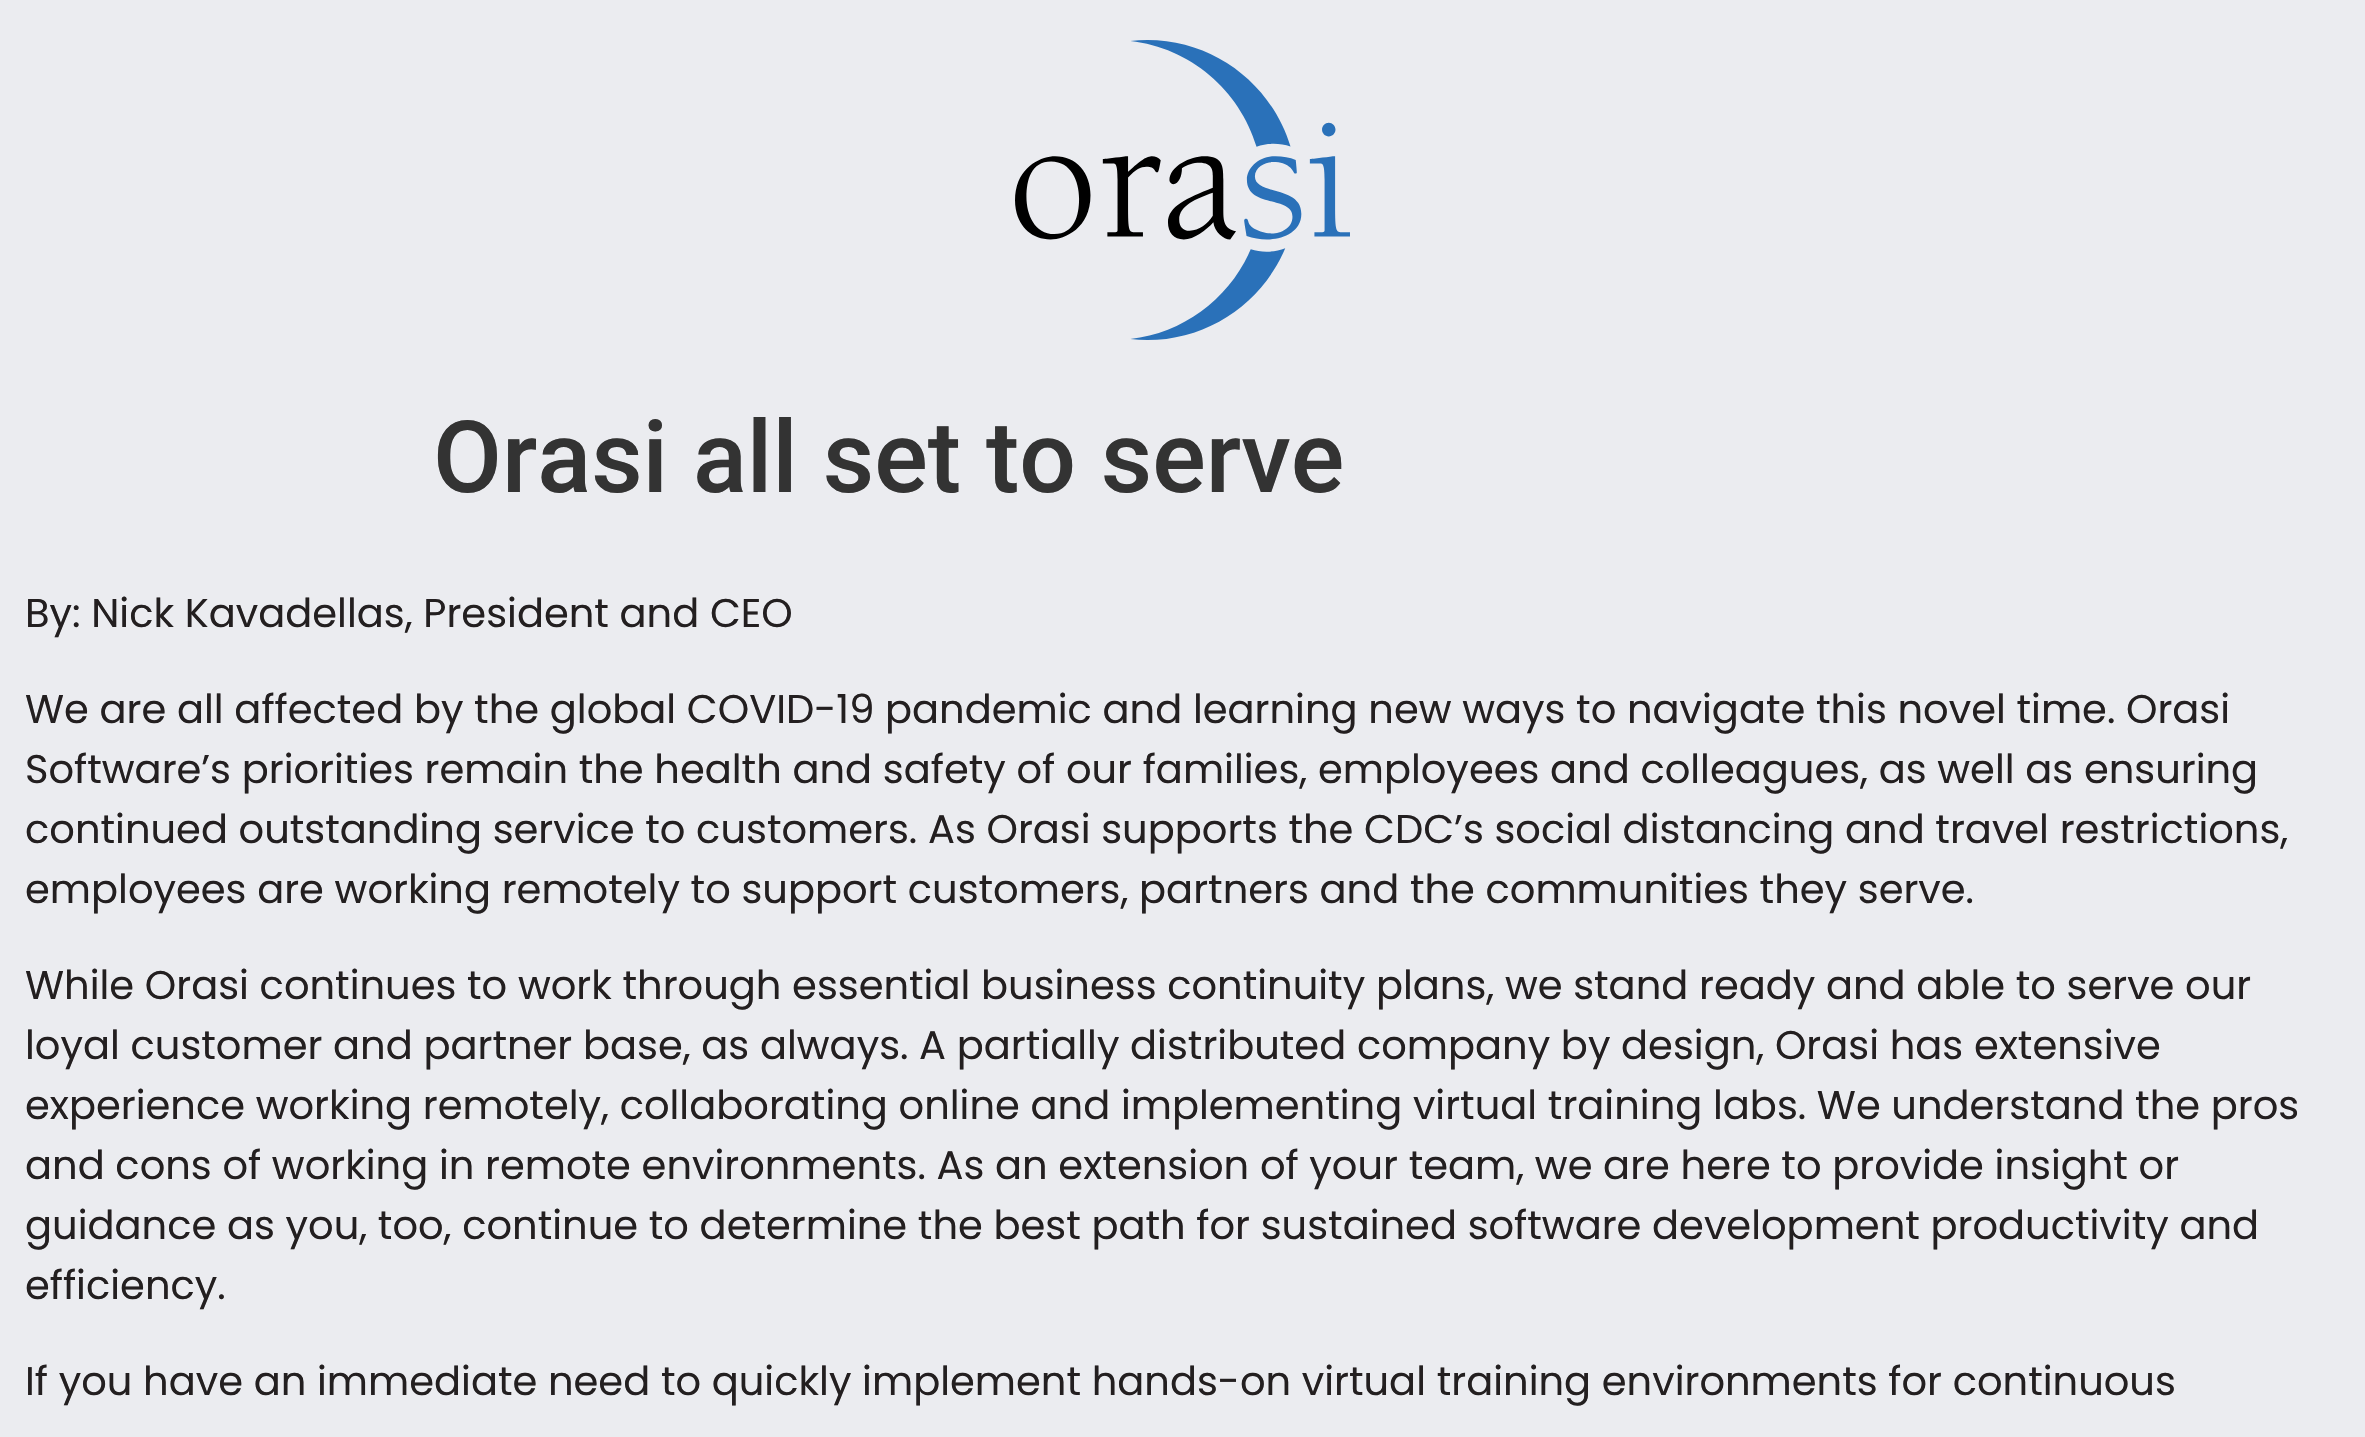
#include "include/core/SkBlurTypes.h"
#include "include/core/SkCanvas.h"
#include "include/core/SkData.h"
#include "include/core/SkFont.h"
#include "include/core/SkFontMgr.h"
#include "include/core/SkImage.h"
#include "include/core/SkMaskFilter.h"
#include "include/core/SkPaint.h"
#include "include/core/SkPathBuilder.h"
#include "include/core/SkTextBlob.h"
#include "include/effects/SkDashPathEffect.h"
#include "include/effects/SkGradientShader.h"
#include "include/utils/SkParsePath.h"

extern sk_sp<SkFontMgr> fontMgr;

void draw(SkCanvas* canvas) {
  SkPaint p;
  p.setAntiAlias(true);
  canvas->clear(SkColorSetRGB(235, 236, 240));
  canvas->drawImageRect(SkImages::DeferredFromEncodedData(SkData::MakeFromFileName("images/1.png")), SkRect::MakeLTRB(1015, 40, 1350, 340), SkSamplingOptions());
  SkFont font1(fontMgr->matchFamilyStyle("Roboto", SkFontStyle(500, SkFontStyle::kNormal_Width, SkFontStyle::kUpright_Slant)), 100);
  font1.setSubpixel(true);
  p.setColor(SkColorSetRGB(51, 51, 51));
  canvas->drawString("Orasi all set to serve", 433, 492, font1, p);
  SkFont font2(fontMgr->matchFamilyStyle("Poppins", SkFontStyle::Normal()), 40);
  font2.setSubpixel(true);
  p.setColor(SkColorSetRGB(35, 31, 32));
  canvas->drawString("By: Nick Kavadellas, President and CEO", 25, 627, font2, p);
  canvas->drawString("We are all affected by the global COVID-19 pandemic and learning new ways to navigate this novel time. Orasi", 25, 723, font2, p);
  canvas->drawString("Software’s priorities remain the health and safety of our families, employees and colleagues, as well as ensuring", 25, 783, font2, p);
  canvas->drawString("continued outstanding service to customers. As Orasi supports the CDC’s social distancing and travel restrictions,", 25, 843, font2, p);
  canvas->drawString("employees are working remotely to support customers, partners and the communities they serve.", 25, 903, font2, p);
  canvas->drawString("While Orasi continues to work through essential business continuity plans, we stand ready and able to serve our", 25, 999, font2, p);
  canvas->drawString("loyal customer and partner base, as always. A partially distributed company by design, Orasi has extensive", 25, 1059, font2, p);
  canvas->drawString("experience working remotely, collaborating online and implementing virtual training labs. We understand the pros", 25, 1119, font2, p);
  canvas->drawString("and cons of working in remote environments. As an extension of your team, we are here to provide insight or", 25, 1179, font2, p);
  canvas->drawString("guidance as you, too, continue to determine the best path for sustained software development productivity and", 25, 1239, font2, p);
  canvas->drawString("efficiency.", 25, 1299, font2, p);
  canvas->drawString("If you have an immediate need to quickly implement hands-on virtual training environments for continuous", 25, 1395, font2, p);
}
